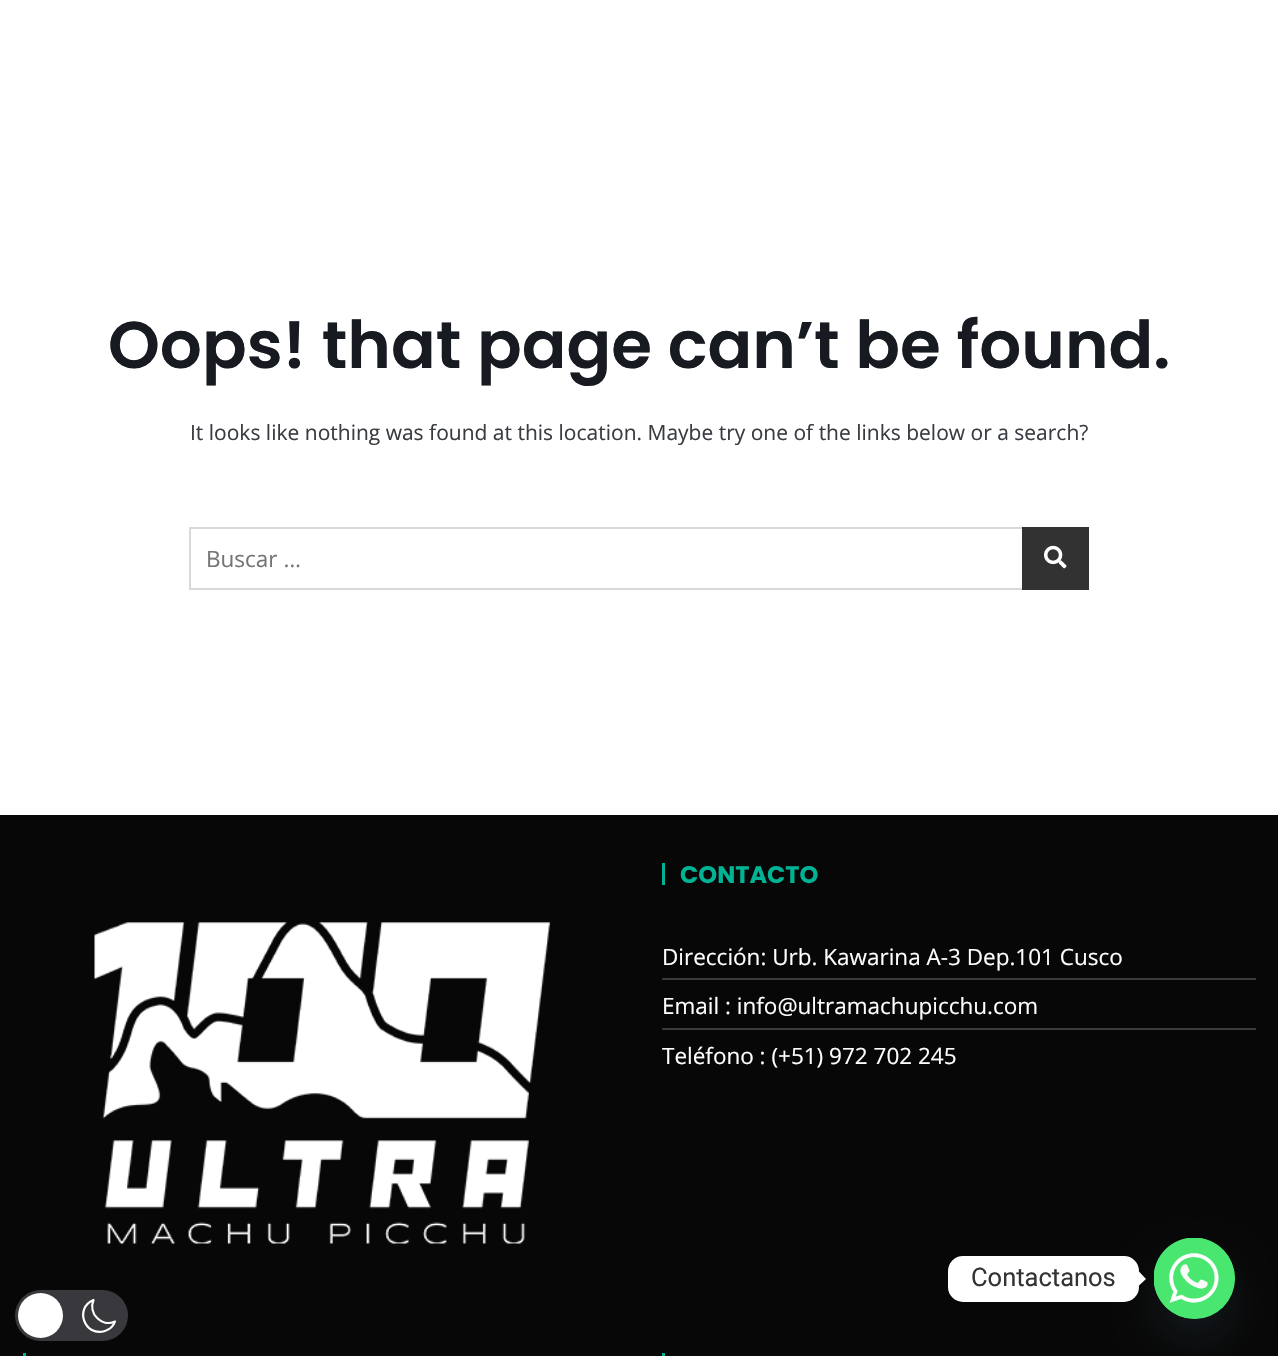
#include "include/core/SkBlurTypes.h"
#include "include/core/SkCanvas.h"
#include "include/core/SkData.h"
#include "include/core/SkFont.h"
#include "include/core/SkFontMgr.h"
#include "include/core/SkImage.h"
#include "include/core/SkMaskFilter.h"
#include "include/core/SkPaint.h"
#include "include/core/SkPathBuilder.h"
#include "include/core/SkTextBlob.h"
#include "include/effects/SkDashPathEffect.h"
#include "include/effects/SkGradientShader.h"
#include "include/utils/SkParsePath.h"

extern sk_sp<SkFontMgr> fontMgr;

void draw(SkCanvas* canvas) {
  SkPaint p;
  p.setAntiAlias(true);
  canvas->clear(SK_ColorWHITE);
  p.setStyle(SkPaint::kStroke_Style);
  p.setStrokeWidth(2);
  p.setColor(SkColorSetRGB(217, 217, 217));
  canvas->drawRect(SkRect::MakeLTRB(190, 528, 1088, 589), p);
  p.setStyle(SkPaint::kFill_Style);
  p.setColor(SkColorSetRGB(50, 50, 50));
  canvas->drawRect(SkRect::MakeLTRB(1022, 527, 1089, 590), p);
  canvas->drawImageRect(SkImages::DeferredFromEncodedData(SkData::MakeFromFileName("images/1.png")), SkRect::MakeLTRB(1044, 545, 1067, 569), SkSamplingOptions());
  p.setColor(SkColorSetRGB(7, 7, 7));
  canvas->drawRect(SkRect::MakeLTRB(0, 815, 1278, 1356), p);
  canvas->drawImageRect(SkImages::DeferredFromEncodedData(SkData::MakeFromFileName("images/2.png")), SkRect::MakeLTRB(94, 922, 550, 1244), SkSamplingOptions());
  p.setColor(SkColorSetRGB(0, 179, 149));
  canvas->drawRect(SkRect::MakeLTRB(662, 863, 665, 885), p);
  p.setColor(SkColorSetRGB(57, 57, 57));
  canvas->drawRect(SkRect::MakeLTRB(662, 978, 1256, 980), p);
  canvas->drawRect(SkRect::MakeLTRB(662, 1028, 1256, 1030), p);
  p.setColor(SkColorSetRGB(0, 179, 149));
  canvas->drawRect(SkRect::MakeLTRB(23, 1353, 26, 1356), p);
  canvas->drawRect(SkRect::MakeLTRB(662, 1353, 665, 1356), p);
  p.setColor(SkColorSetARGB(41, 73, 104, 126));
  p.setMaskFilter(SkMaskFilter::MakeBlur(kNormal_SkBlurStyle, 18));
  canvas->drawRoundRect(SkRect::MakeLTRB(1154, 1262, 1235, 1343), 40.5f, 40.5f, p);
  p.setMaskFilter(nullptr);
  p.setColor(SK_ColorWHITE);
  canvas->drawRoundRect(SkRect::MakeLTRB(948, 1256, 1139, 1302), 15, 15, p);
  canvas->drawPath(SkPathBuilder().moveTo(1138.5f, 1286).lineTo(1138.5f, 1271).lineTo(1146, 1279).close().detach(), p);
  p.setColor(SkColorSetRGB(73, 230, 112));
  canvas->drawCircle(1194.5f, 1278.5f, 40.5f, p);
  canvas->drawImageRect(SkImages::DeferredFromEncodedData(SkData::MakeFromFileName("images/3.png")), SkRect::MakeLTRB(1154, 1238, 1235, 1319), SkSamplingOptions());
  p.setColor(SkColorSetRGB(57, 57, 61));
  canvas->drawRoundRect(SkRect::MakeLTRB(15, 1290, 128, 1341), 25.5f, 25.5f, p);
  p.setColor(SK_ColorWHITE);
  canvas->drawCircle(40.5f, 1315.5f, 22.5f, p);
  p.setStyle(SkPaint::kStroke_Style);
  p.setStrokeWidth(2.2f);
  p.setStrokeCap(SkPaint::kRound_Cap);
  p.setStrokeJoin(SkPaint::kRound_Join);
  canvas->drawPath(SkPathBuilder().moveTo(115, 1321.5f).cubicTo(101.5f, 1327.5f, 88, 1313.5f, 93.5f, 1300).cubicTo(74, 1308, 84.5f, 1337.5f, 105, 1331).cubicTo(109.5f, 1329.5f, 113.5f, 1326, 115, 1321.5f).close().detach(), p);
  SkFont font1(fontMgr->matchFamilyStyle("Poppins", SkFontStyle(600, SkFontStyle::kNormal_Width, SkFontStyle::kUpright_Slant)), 66);
  font1.setSubpixel(true);
  p.setStyle(SkPaint::kFill_Style);
  p.setColor(SkColorSetRGB(23, 26, 32));
  canvas->drawString("Oops! that page can’t be found.", 108, 368, font1, p);
  SkFont font2(fontMgr->matchFamilyStyle("Open Sans", SkFontStyle::Normal()), 21);
  font2.setSubpixel(true);
  p.setColor(SkColorSetRGB(57, 60, 65));
  canvas->drawString("It looks like nothing was found at this location. Maybe try one of the links below or a search?", 190, 440, font2, p);
  SkFont font3(fontMgr->matchFamilyStyle("Open Sans", SkFontStyle::Normal()), 22.5f);
  font3.setSubpixel(true);
  p.setColor(SkColorSetRGB(117, 117, 117));
  canvas->drawString("Buscar …", 206, 567, font3, p);
  SkFont font4(fontMgr->matchFamilyStyle("Poppins", SkFontStyle::Bold()), 24);
  font4.setSubpixel(true);
  p.setColor(SkColorSetRGB(0, 179, 149));
  canvas->drawString("CONTACTO", 680, 883, font4, p);
  p.setColor(SK_ColorWHITE);
  canvas->drawString("Dirección: Urb. Kawarina A-3 Dep.101 Cusco", 662, 965, font3, p);
  canvas->drawString("Email : info@ultramachupicchu.com", 662, 1014, font3, p);
  canvas->drawString("Teléfono : (+51) 972 702 245", 662, 1064, font3, p);
  SkFont font5(fontMgr->matchFamilyStyle("Roboto", SkFontStyle::Normal()), 25.5f);
  font5.setSubpixel(true);
  p.setColor(SkColorSetRGB(51, 51, 51));
  canvas->drawString("Contactanos", 971, 1286, font5, p);
}
